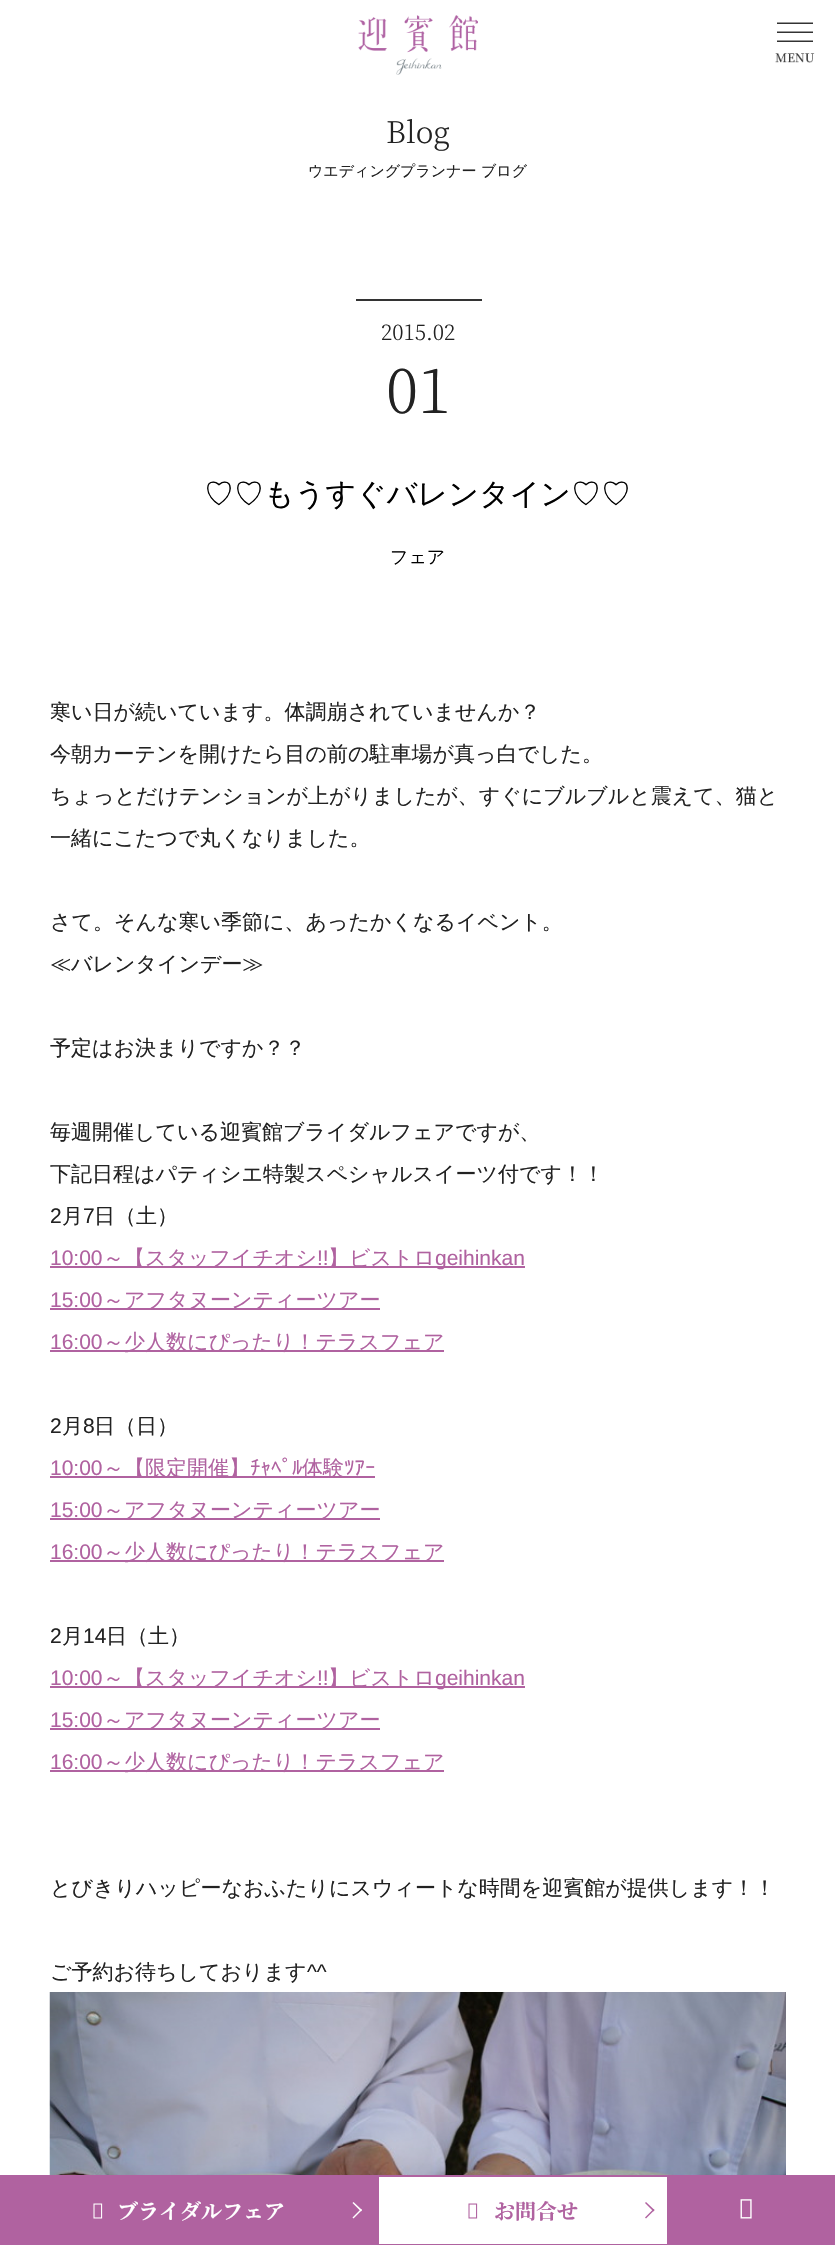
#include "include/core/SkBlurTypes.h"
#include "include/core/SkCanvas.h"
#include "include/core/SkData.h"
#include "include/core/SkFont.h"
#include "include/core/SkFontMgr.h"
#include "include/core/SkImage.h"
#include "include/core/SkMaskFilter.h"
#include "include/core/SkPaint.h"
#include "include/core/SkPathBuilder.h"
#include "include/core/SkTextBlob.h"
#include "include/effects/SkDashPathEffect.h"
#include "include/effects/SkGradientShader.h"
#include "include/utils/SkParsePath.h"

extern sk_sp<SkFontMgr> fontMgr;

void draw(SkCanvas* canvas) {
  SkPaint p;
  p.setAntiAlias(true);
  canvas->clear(SK_ColorWHITE);
  canvas->drawImageRect(SkImages::DeferredFromEncodedData(SkData::MakeFromFileName("images/1.png")), SkRect::MakeLTRB(358, 15, 478, 75), SkSamplingOptions());
  canvas->drawImageRect(SkImages::DeferredFromEncodedData(SkData::MakeFromFileName("images/2.png")), SkRect::MakeLTRB(775, 22, 815, 63), SkSamplingOptions());
  p.setColor(SkColorSetRGB(51, 51, 51));
  canvas->drawRect(SkRect::MakeLTRB(356, 299, 482, 301), p);
  p.setColor(SkColorSetRGB(176, 98, 160));
  canvas->drawRect(SkRect::MakeLTRB(50, 1266, 525, 1268), p);
  canvas->drawRect(SkRect::MakeLTRB(50, 1308, 380, 1310), p);
  canvas->drawRect(SkRect::MakeLTRB(50, 1350, 444, 1352), p);
  canvas->drawRect(SkRect::MakeLTRB(50, 1476, 375, 1478), p);
  canvas->drawRect(SkRect::MakeLTRB(50, 1518, 380, 1520), p);
  canvas->drawRect(SkRect::MakeLTRB(50, 1560, 444, 1562), p);
  canvas->drawRect(SkRect::MakeLTRB(50, 1686, 525, 1688), p);
  canvas->drawRect(SkRect::MakeLTRB(50, 1728, 380, 1730), p);
  canvas->drawRect(SkRect::MakeLTRB(50, 1770, 444, 1772), p);
  canvas->drawImageRect(SkImages::DeferredFromEncodedData(SkData::MakeFromFileName("images/3.png")), SkRect::MakeLTRB(49, 1992, 786, 2175), SkSamplingOptions());
  canvas->drawRect(SkRect::MakeLTRB(0, 2175, 377, 2245), p);
  canvas->drawImageRect(SkImages::DeferredFromEncodedData(SkData::MakeFromFileName("images/4.png")), SkRect::MakeLTRB(93, 2203, 103, 2219), SkSamplingOptions());
  p.setColor(SK_ColorWHITE);
  canvas->drawPath(SkPathBuilder().moveTo(353.5f, 2202).lineTo(362, 2210).lineTo(361, 2211.5f).lineTo(352.5f, 2203).close().detach(), p);
  canvas->drawPath(SkPathBuilder().moveTo(361, 2209).lineTo(362, 2210).lineTo(353.5f, 2218.5f).lineTo(352.5f, 2217.5f).close().detach(), p);
  p.setStyle(SkPaint::kStroke_Style);
  p.setStrokeWidth(2);
  p.setColor(SkColorSetRGB(176, 98, 160));
  canvas->drawRect(SkRect::MakeLTRB(378, 2176, 668, 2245), p);
  canvas->drawImageRect(SkImages::DeferredFromEncodedData(SkData::MakeFromFileName("images/5.png")), SkRect::MakeLTRB(468, 2203, 478, 2219), SkSamplingOptions());
  p.setStyle(SkPaint::kFill_Style);
  canvas->drawPath(SkPathBuilder().moveTo(646, 2202).lineTo(654.5f, 2210).lineTo(653.5f, 2211.5f).lineTo(645, 2203).close().detach(), p);
  canvas->drawPath(SkPathBuilder().moveTo(653.5f, 2209).lineTo(654.5f, 2210).lineTo(646, 2218.5f).lineTo(645, 2217.5f).close().detach(), p);
  canvas->drawRect(SkRect::MakeLTRB(669, 2175, 835, 2245), p);
  canvas->drawImageRect(SkImages::DeferredFromEncodedData(SkData::MakeFromFileName("images/6.png")), SkRect::MakeLTRB(740, 2199, 752, 2219), SkSamplingOptions());
  SkFont font1(fontMgr->matchFamilyStyle("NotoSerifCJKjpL", SkFontStyle(300, SkFontStyle::kNormal_Width, SkFontStyle::kUpright_Slant)), 30);
  font1.setSubpixel(true);
  p.setColor(SkColorSetRGB(34, 34, 34));
  canvas->drawString("Blog", 386, 143, font1, p);
  SkFont font2(fontMgr->matchFamilyStyle("WenQuanYi Zen Hei", SkFontStyle(500, SkFontStyle::kNormal_Width, SkFontStyle::kUpright_Slant)), 15);
  font2.setSubpixel(true);
  canvas->drawString("ウエディングプランナー ブログ", 308, 176, font2, p);
  SkFont font3(fontMgr->matchFamilyStyle("NotoSerifCJKjpL", SkFontStyle(300, SkFontStyle::kNormal_Width, SkFontStyle::kUpright_Slant)), 21);
  font3.setSubpixel(true);
  canvas->drawString("2015.02", 381, 340, font3, p);
  SkFont font4(fontMgr->matchFamilyStyle("NotoSerifCJKjpL", SkFontStyle(300, SkFontStyle::kNormal_Width, SkFontStyle::kUpright_Slant)), 60);
  font4.setSubpixel(true);
  canvas->drawString("01", 386, 413, font4, p);
  SkFont font5(fontMgr->matchFamilyStyle("WenQuanYi Zen Hei", SkFontStyle(500, SkFontStyle::kNormal_Width, SkFontStyle::kUpright_Slant)), 30);
  font5.setSubpixel(true);
  p.setColor(SK_ColorBLACK);
  canvas->drawString("♡♡もうすぐバレンタイン♡♡", 204, 504, font5, p);
  SkFont font6(fontMgr->matchFamilyStyle("WenQuanYi Zen Hei", SkFontStyle(500, SkFontStyle::kNormal_Width, SkFontStyle::kUpright_Slant)), 18);
  font6.setSubpixel(true);
  canvas->drawString("フェア", 390, 563, font6, p);
  SkFont font7(fontMgr->matchFamilyStyle("WenQuanYi Zen Hei", SkFontStyle(500, SkFontStyle::kNormal_Width, SkFontStyle::kUpright_Slant)), 21);
  font7.setSubpixel(true);
  p.setColor(SkColorSetRGB(34, 34, 34));
  canvas->drawString("寒い日が続いています。体調崩されていませんか？", 50, 719, font7, p);
  canvas->drawString("今朝カーテンを開けたら目の前の駐車場が真っ白でした。", 50, 761, font7, p);
  canvas->drawString("ちょっとだけテンションが上がりましたが、すぐにブルブルと震えて、猫と", 50, 803, font7, p);
  canvas->drawString("一緒にこたつで丸くなりました。", 50, 845, font7, p);
  canvas->drawString("さて。そんな寒い季節に、あったかくなるイベント。", 50, 929, font7, p);
  canvas->drawString("≪バレンタインデー≫", 50, 971, font7, p);
  canvas->drawString("予定はお決まりですか？？", 50, 1055, font7, p);
  canvas->drawString("毎週開催している迎賓館ブライダルフェアですが、", 50, 1139, font7, p);
  canvas->drawString("下記日程はパティシエ特製スペシャルスイーツ付です！！", 50, 1181, font7, p);
  SkFont font8(fontMgr->matchFamilyStyle("Liberation Sans", SkFontStyle::Normal()), 21);
  font8.setSubpixel(true);
  canvas->drawString("2", 50, 1223, font8, p);
  canvas->drawString("月", 62, 1223, font7, p);
  canvas->drawString("7", 83, 1223, font8, p);
  canvas->drawString("日（土）", 94, 1223, font7, p);
  p.setColor(SkColorSetRGB(176, 98, 160));
  canvas->drawString("10:00", 50, 1265, font8, p);
  canvas->drawString("～【スタッフイチオシ", 103, 1265, font7, p);
  canvas->drawString("!!", 317, 1265, font8, p);
  canvas->drawString("】ビストロ", 328, 1265, font7, p);
  canvas->drawString("geihinkan", 435, 1265, font8, p);
  canvas->drawString("15:00", 50, 1307, font8, p);
  canvas->drawString("～アフタヌーンティーツアー", 103, 1307, font7, p);
  canvas->drawString("16:00", 50, 1349, font8, p);
  canvas->drawString("～少人数にぴったり！テラスフェア", 103, 1349, font7, p);
  p.setColor(SkColorSetRGB(34, 34, 34));
  canvas->drawString("2", 50, 1433, font8, p);
  canvas->drawString("月", 62, 1433, font7, p);
  canvas->drawString("8", 83, 1433, font8, p);
  canvas->drawString("日（日）", 94, 1433, font7, p);
  p.setColor(SkColorSetRGB(176, 98, 160));
  canvas->drawString("10:00", 50, 1475, font8, p);
  canvas->drawString("～【限定開催】", 103, 1475, font7, p);
  SkFont font9(fontMgr->matchFamilyStyle("IPAPGothic", SkFontStyle::Normal()), 21);
  font9.setSubpixel(true);
  canvas->drawString("ﾁｬﾍﾟﾙ", 250, 1475, font9, p);
  canvas->drawString("体験", 302, 1475, font7, p);
  canvas->drawString("ﾂｱｰ", 344, 1475, font9, p);
  canvas->drawString("15:00", 50, 1517, font8, p);
  canvas->drawString("～アフタヌーンティーツアー", 103, 1517, font7, p);
  canvas->drawString("16:00", 50, 1559, font8, p);
  canvas->drawString("～少人数にぴったり！テラスフェア", 103, 1559, font7, p);
  p.setColor(SkColorSetRGB(34, 34, 34));
  canvas->drawString("2", 50, 1643, font8, p);
  canvas->drawString("月", 62, 1643, font7, p);
  canvas->drawString("14", 83, 1643, font8, p);
  canvas->drawString("日（土）", 106, 1643, font7, p);
  p.setColor(SkColorSetRGB(176, 98, 160));
  canvas->drawString("10:00", 50, 1685, font8, p);
  canvas->drawString("～【スタッフイチオシ", 103, 1685, font7, p);
  canvas->drawString("!!", 317, 1685, font8, p);
  canvas->drawString("】ビストロ", 328, 1685, font7, p);
  canvas->drawString("geihinkan", 435, 1685, font8, p);
  canvas->drawString("15:00", 50, 1727, font8, p);
  canvas->drawString("～アフタヌーンティーツアー", 103, 1727, font7, p);
  canvas->drawString("16:00", 50, 1769, font8, p);
  canvas->drawString("～少人数にぴったり！テラスフェア", 103, 1769, font7, p);
  p.setColor(SkColorSetRGB(34, 34, 34));
  canvas->drawString("とびきりハッピーなおふたりにスウィートな時間を迎賓館が提供します！！", 50, 1895, font7, p);
  canvas->drawString("ご予約お待ちしております", 50, 1979, font7, p);
  canvas->drawString("^^", 307, 1979, font8, p);
  SkFont font10(fontMgr->matchFamilyStyle("Noto Serif JP", SkFontStyle::Bold()), 21);
  font10.setSubpixel(true);
  p.setColor(SK_ColorWHITE);
  canvas->drawString("ブライダルフェア", 117, 2219, font10, p);
  p.setColor(SkColorSetRGB(176, 98, 160));
  canvas->drawString("お問合せ", 494, 2219, font10, p);
}
